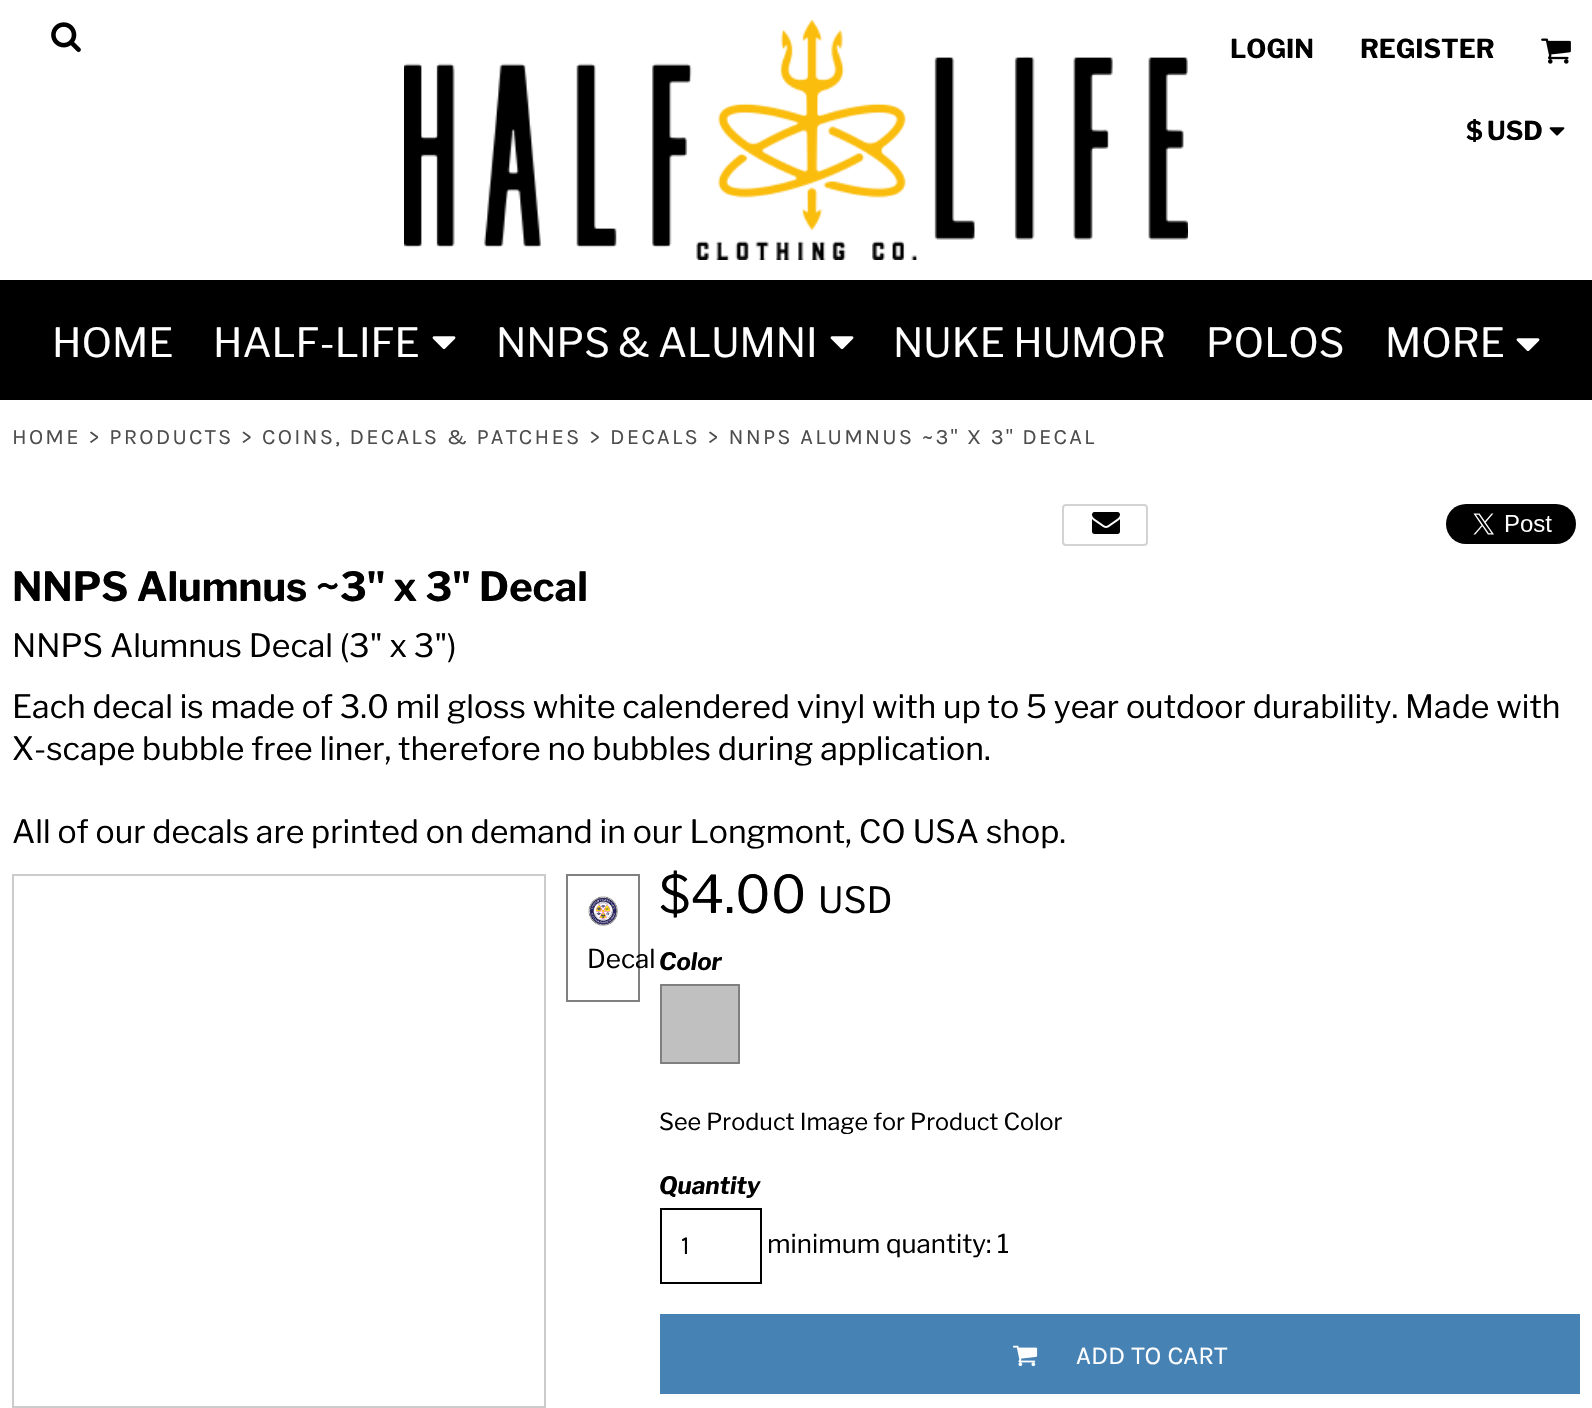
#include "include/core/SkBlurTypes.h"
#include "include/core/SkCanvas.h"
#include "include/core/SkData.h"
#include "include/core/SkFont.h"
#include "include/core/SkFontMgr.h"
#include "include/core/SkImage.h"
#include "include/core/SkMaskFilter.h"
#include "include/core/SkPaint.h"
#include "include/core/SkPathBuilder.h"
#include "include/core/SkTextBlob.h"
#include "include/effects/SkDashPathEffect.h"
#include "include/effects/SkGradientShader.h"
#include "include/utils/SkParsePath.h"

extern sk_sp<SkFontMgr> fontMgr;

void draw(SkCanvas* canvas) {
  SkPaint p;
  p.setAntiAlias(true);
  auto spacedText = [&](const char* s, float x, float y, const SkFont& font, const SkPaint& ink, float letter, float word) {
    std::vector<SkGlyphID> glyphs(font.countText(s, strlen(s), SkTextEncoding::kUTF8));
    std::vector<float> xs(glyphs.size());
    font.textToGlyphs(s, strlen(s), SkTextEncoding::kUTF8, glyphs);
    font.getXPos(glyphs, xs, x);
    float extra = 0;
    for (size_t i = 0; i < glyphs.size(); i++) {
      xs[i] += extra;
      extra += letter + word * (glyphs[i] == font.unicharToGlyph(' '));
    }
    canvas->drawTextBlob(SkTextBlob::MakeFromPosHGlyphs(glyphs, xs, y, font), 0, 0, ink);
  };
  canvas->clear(SK_ColorWHITE);
  canvas->drawImageRect(SkImages::DeferredFromEncodedData(SkData::MakeFromFileName("images/1.png")), SkRect::MakeLTRB(51, 22, 81, 52), SkSamplingOptions());
  canvas->drawImageRect(SkImages::DeferredFromEncodedData(SkData::MakeFromFileName("images/2.png")), SkRect::MakeLTRB(404, 20, 1188, 260), SkSamplingOptions());
  canvas->drawImageRect(SkImages::DeferredFromEncodedData(SkData::MakeFromFileName("images/3.png")), SkRect::MakeLTRB(1541, 38, 1571, 64), SkSamplingOptions());
  canvas->drawImageRect(SkImages::DeferredFromEncodedData(SkData::MakeFromFileName("images/4.png")), SkRect::MakeLTRB(1549, 127, 1565, 136), SkSamplingOptions());
  p.setColor(SK_ColorBLACK);
  canvas->drawRect(SkRect::MakeLTRB(0, 280, 1592, 400), p);
  canvas->drawImageRect(SkImages::DeferredFromEncodedData(SkData::MakeFromFileName("images/5.png")), SkRect::MakeLTRB(432, 336, 456, 350), SkSamplingOptions());
  canvas->drawImageRect(SkImages::DeferredFromEncodedData(SkData::MakeFromFileName("images/5.png")), SkRect::MakeLTRB(830, 336, 854, 350), SkSamplingOptions());
  canvas->drawImageRect(SkImages::DeferredFromEncodedData(SkData::MakeFromFileName("images/5.png")), SkRect::MakeLTRB(1516, 338, 1540, 352), SkSamplingOptions());
  p.setStyle(SkPaint::kStroke_Style);
  p.setStrokeWidth(2);
  p.setColor(SkColorSetRGB(211, 211, 211));
  canvas->drawRoundRect(SkRect::MakeLTRB(1063, 505, 1147, 545), 3, 3, p);
  canvas->drawImageRect(SkImages::DeferredFromEncodedData(SkData::MakeFromFileName("images/6.png")), SkRect::MakeLTRB(1092, 512, 1120, 534), SkSamplingOptions());
  canvas->drawImageRect(SkImages::DeferredFromEncodedData(SkData::MakeFromFileName("images/7.png")), SkRect::MakeLTRB(1446, 504, 1576, 544), SkSamplingOptions());
  p.setColor(SkColorSetRGB(204, 204, 204));
  canvas->drawRect(SkRect::MakeLTRB(13, 875, 545, 1407), p);
  p.setColor(SkColorSetRGB(128, 128, 128));
  canvas->drawRect(SkRect::MakeLTRB(567, 875, 639, 1001), p);
  canvas->drawImageRect(SkImages::DeferredFromEncodedData(SkData::MakeFromFileName("images/8.png")), SkRect::MakeLTRB(588, 896, 618, 926), SkSamplingOptions());
  canvas->drawRect(SkRect::MakeLTRB(661, 985, 739, 1063), p);
  p.setStyle(SkPaint::kFill_Style);
  p.setColor(SkColorSetRGB(192, 192, 192));
  canvas->drawRect(SkRect::MakeLTRB(662, 986, 738, 1062), p);
  p.setStyle(SkPaint::kStroke_Style);
  p.setColor(SK_ColorBLACK);
  canvas->drawRect(SkRect::MakeLTRB(661, 1209, 761, 1283), p);
  p.setStyle(SkPaint::kFill_Style);
  p.setColor(SkColorSetRGB(70, 130, 180));
  canvas->drawRect(SkRect::MakeLTRB(660, 1314, 1580, 1394), p);
  canvas->drawImageRect(SkImages::DeferredFromEncodedData(SkData::MakeFromFileName("images/9.png")), SkRect::MakeLTRB(1012, 1345, 1038, 1367), SkSamplingOptions());
  SkFont font1(fontMgr->matchFamilyStyle("Libre Franklin", SkFontStyle(100, SkFontStyle::kNormal_Width, SkFontStyle::kUpright_Slant)), 26);
  font1.setSubpixel(true);
  p.setColor(SK_ColorBLACK);
  canvas->drawString("LOGIN", 1230, 58, font1, p);
  canvas->drawString("REGISTER", 1360, 58, font1, p);
  canvas->drawString("$", 1466, 140, font1, p);
  canvas->drawString("USD", 1487, 140, font1, p);
  SkFont font2(fontMgr->matchFamilyStyle("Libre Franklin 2", SkFontStyle(100, SkFontStyle::kNormal_Width, SkFontStyle::kUpright_Slant)), 40);
  font2.setSubpixel(true);
  p.setColor(SK_ColorWHITE);
  canvas->drawString("HOME", 52, 357, font2, p);
  canvas->drawString("HALF-LIFE", 213, 357, font2, p);
  canvas->drawString("NNPS & ALUMNI", 496, 357, font2, p);
  canvas->drawString("NUKE HUMOR", 893, 357, font2, p);
  canvas->drawString("POLOS", 1206, 357, font2, p);
  canvas->drawString("MORE", 1385, 357, font2, p);
  SkFont font3(fontMgr->matchFamilyStyle("Karla", SkFontStyle::Normal()), 22);
  font3.setSubpixel(true);
  p.setColor(SkColorSetRGB(77, 77, 77));
  spacedText("HOME > PRODUCTS > COINS, DECALS & PATCHES > DECALS > NNPS ALUMNUS ~3\" X 3\" DECAL", 12, 444, font3, p, 2.2f, 0);
  SkFont font4(fontMgr->matchFamilyStyle("Libre Franklin", SkFontStyle(100, SkFontStyle::kNormal_Width, SkFontStyle::kUpright_Slant)), 40);
  font4.setSubpixel(true);
  p.setColor(SK_ColorBLACK);
  canvas->drawString("NNPS Alumnus ~3\" x 3\" Decal", 12, 601, font4, p);
  SkFont font5(fontMgr->matchFamilyStyle("Libre Franklin 2", SkFontStyle(100, SkFontStyle::kNormal_Width, SkFontStyle::kUpright_Slant)), 32);
  font5.setSubpixel(true);
  canvas->drawString("NNPS Alumnus Decal (3\" x 3\")", 12, 657, font5, p);
  canvas->drawString("Each decal is made of 3.0 mil gloss white calendered vinyl with up to 5 year outdoor durability. Made with", 12, 718, font5, p);
  canvas->drawString("X-scape bubble free liner, therefore no bubbles during application.", 12, 760, font5, p);
  canvas->drawString("All of our decals are printed on demand in our Longmont, CO USA shop.", 12, 843, font5, p);
  SkFont font6(fontMgr->matchFamilyStyle("Libre Franklin 2", SkFontStyle(100, SkFontStyle::kNormal_Width, SkFontStyle::kUpright_Slant)), 26);
  font6.setSubpixel(true);
  canvas->drawString("Decal", 587, 968, font6, p);
  SkFont font7(fontMgr->matchFamilyStyle("Libre Franklin 2", SkFontStyle(100, SkFontStyle::kNormal_Width, SkFontStyle::kUpright_Slant)), 52);
  font7.setSubpixel(true);
  canvas->drawString("$4.00", 659, 913, font7, p);
  SkFont font8(fontMgr->matchFamilyStyle("Libre Franklin 2", SkFontStyle(100, SkFontStyle::kNormal_Width, SkFontStyle::kUpright_Slant)), 36);
  font8.setSubpixel(true);
  canvas->drawString("USD", 818, 913, font8, p);
  SkFont font9(fontMgr->matchFamilyStyle("Libre Franklin", SkFontStyle(100, SkFontStyle::kNormal_Width, SkFontStyle::kItalic_Slant)), 24);
  font9.setSubpixel(true);
  canvas->drawString("Color", 659, 970, font9, p);
  SkFont font10(fontMgr->matchFamilyStyle("Libre Franklin 2", SkFontStyle(100, SkFontStyle::kNormal_Width, SkFontStyle::kUpright_Slant)), 23.4f);
  font10.setSubpixel(true);
  canvas->drawString("See Product Image for Product Color", 659, 1130, font10, p);
  canvas->drawString("Quantity", 659, 1194, font9, p);
  SkFont font11(fontMgr->matchFamilyStyle("Karla", SkFontStyle::Normal()), 26);
  font11.setSubpixel(true);
  canvas->drawString("1", 681, 1254, font11, p);
  canvas->drawString("minimum quantity: 1", 767, 1253, font6, p);
  p.setColor(SK_ColorWHITE);
  canvas->drawString("ADD TO CART", 1076, 1364, font11, p);
}
